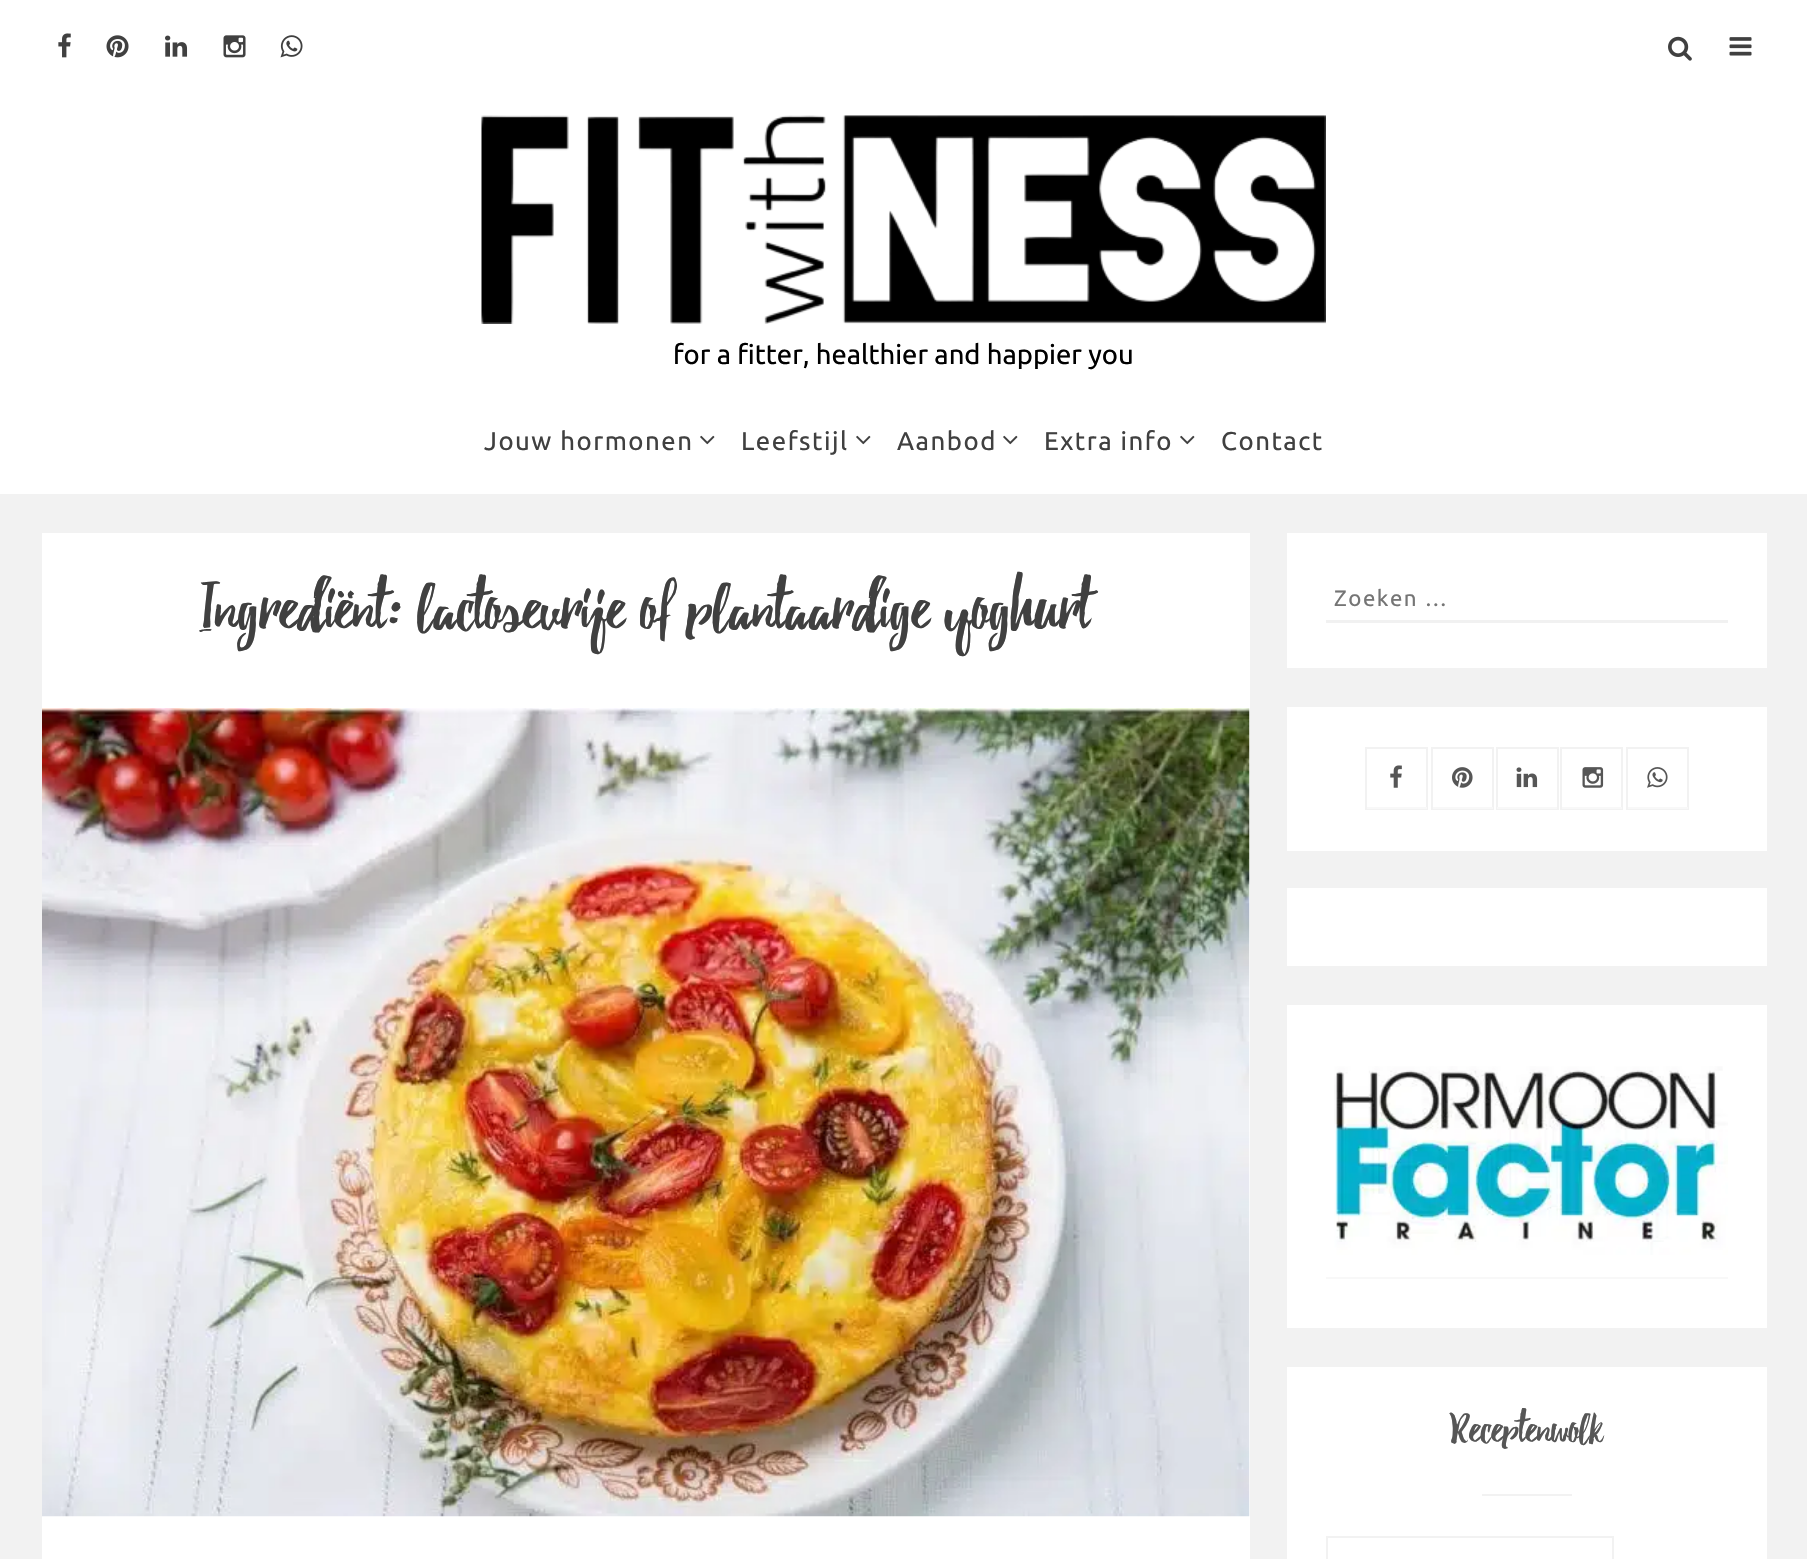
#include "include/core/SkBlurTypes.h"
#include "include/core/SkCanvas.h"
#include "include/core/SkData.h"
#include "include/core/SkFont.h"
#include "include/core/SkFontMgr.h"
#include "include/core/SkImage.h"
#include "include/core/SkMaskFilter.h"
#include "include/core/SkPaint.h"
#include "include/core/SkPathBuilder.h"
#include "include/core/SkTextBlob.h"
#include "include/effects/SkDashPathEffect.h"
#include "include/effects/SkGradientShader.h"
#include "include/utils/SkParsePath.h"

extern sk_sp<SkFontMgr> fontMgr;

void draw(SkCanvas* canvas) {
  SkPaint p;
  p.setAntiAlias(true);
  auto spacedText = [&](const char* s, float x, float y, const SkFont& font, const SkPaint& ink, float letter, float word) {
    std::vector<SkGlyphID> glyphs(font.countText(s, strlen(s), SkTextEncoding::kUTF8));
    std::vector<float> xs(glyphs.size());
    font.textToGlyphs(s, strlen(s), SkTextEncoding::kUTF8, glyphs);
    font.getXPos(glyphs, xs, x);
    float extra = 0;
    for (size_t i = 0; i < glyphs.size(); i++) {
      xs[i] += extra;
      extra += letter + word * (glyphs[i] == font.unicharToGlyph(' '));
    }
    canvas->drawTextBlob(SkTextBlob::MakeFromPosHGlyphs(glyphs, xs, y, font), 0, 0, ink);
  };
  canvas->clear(SkColorSetRGB(242, 242, 242));
  p.setColor(SK_ColorWHITE);
  canvas->drawRect(SkRect::MakeLTRB(0, 0, 1807, 494), p);
  canvas->drawImageRect(SkImages::DeferredFromEncodedData(SkData::MakeFromFileName("images/1.png")), SkRect::MakeLTRB(58, 33, 71, 58), SkSamplingOptions());
  canvas->drawImageRect(SkImages::DeferredFromEncodedData(SkData::MakeFromFileName("images/2.png")), SkRect::MakeLTRB(106, 35, 129, 58), SkSamplingOptions());
  canvas->drawImageRect(SkImages::DeferredFromEncodedData(SkData::MakeFromFileName("images/3.png")), SkRect::MakeLTRB(165, 35, 188, 57), SkSamplingOptions());
  canvas->drawImageRect(SkImages::DeferredFromEncodedData(SkData::MakeFromFileName("images/4.png")), SkRect::MakeLTRB(223, 35, 246, 58), SkSamplingOptions());
  canvas->drawImageRect(SkImages::DeferredFromEncodedData(SkData::MakeFromFileName("images/5.png")), SkRect::MakeLTRB(280, 35, 303, 58), SkSamplingOptions());
  canvas->drawImageRect(SkImages::DeferredFromEncodedData(SkData::MakeFromFileName("images/6.png")), SkRect::MakeLTRB(1668, 36, 1692, 61), SkSamplingOptions());
  canvas->drawImageRect(SkImages::DeferredFromEncodedData(SkData::MakeFromFileName("images/7.png")), SkRect::MakeLTRB(1729, 37, 1752, 56), SkSamplingOptions());
  canvas->drawImageRect(SkImages::DeferredFromEncodedData(SkData::MakeFromFileName("images/8.png")), SkRect::MakeLTRB(481, 115, 1326, 324), SkSamplingOptions());
  canvas->drawImageRect(SkImages::DeferredFromEncodedData(SkData::MakeFromFileName("images/9.png")), SkRect::MakeLTRB(700, 435, 715, 445), SkSamplingOptions());
  canvas->drawImageRect(SkImages::DeferredFromEncodedData(SkData::MakeFromFileName("images/9.png")), SkRect::MakeLTRB(856, 435, 871, 445), SkSamplingOptions());
  canvas->drawImageRect(SkImages::DeferredFromEncodedData(SkData::MakeFromFileName("images/9.png")), SkRect::MakeLTRB(1003, 435, 1018, 445), SkSamplingOptions());
  canvas->drawImageRect(SkImages::DeferredFromEncodedData(SkData::MakeFromFileName("images/9.png")), SkRect::MakeLTRB(1180, 435, 1195, 445), SkSamplingOptions());
  canvas->drawRect(SkRect::MakeLTRB(42, 533, 1250, 708), p);
  canvas->drawRect(SkRect::MakeLTRB(42, 708, 1250, 1559), p);
  canvas->drawImageRect(SkImages::DeferredFromEncodedData(SkData::MakeFromFileName("images/10.png")), SkRect::MakeLTRB(42, 708, 1250, 1517), SkSamplingOptions());
  canvas->drawRect(SkRect::MakeLTRB(1287, 533, 1767, 668), p);
  p.setColor(SkColorSetRGB(241, 241, 241));
  canvas->drawRect(SkRect::MakeLTRB(1326, 620, 1728, 623), p);
  p.setColor(SK_ColorWHITE);
  canvas->drawRect(SkRect::MakeLTRB(1287, 707, 1767, 851), p);
  p.setStyle(SkPaint::kStroke_Style);
  p.setStrokeWidth(2);
  p.setColor(SkColorSetRGB(242, 242, 242));
  canvas->drawRect(SkRect::MakeLTRB(1366, 748, 1427, 809), p);
  p.setStyle(SkPaint::kFill_Style);
  p.setColor(SkColorSetRGB(248, 248, 248));
  canvas->drawRect(SkRect::MakeLTRB(1367, 807, 1427, 809), p);
  canvas->drawImageRect(SkImages::DeferredFromEncodedData(SkData::MakeFromFileName("images/11.png")), SkRect::MakeLTRB(1390, 765, 1402, 788), SkSamplingOptions());
  p.setStyle(SkPaint::kStroke_Style);
  p.setColor(SkColorSetRGB(242, 242, 242));
  canvas->drawRect(SkRect::MakeLTRB(1432, 748, 1493, 809), p);
  p.setStyle(SkPaint::kFill_Style);
  p.setColor(SkColorSetRGB(248, 248, 248));
  canvas->drawRect(SkRect::MakeLTRB(1433, 807, 1493, 809), p);
  canvas->drawImageRect(SkImages::DeferredFromEncodedData(SkData::MakeFromFileName("images/12.png")), SkRect::MakeLTRB(1452, 767, 1473, 788), SkSamplingOptions());
  p.setStyle(SkPaint::kStroke_Style);
  p.setColor(SkColorSetRGB(242, 242, 242));
  canvas->drawRect(SkRect::MakeLTRB(1497, 748, 1558, 809), p);
  p.setStyle(SkPaint::kFill_Style);
  p.setColor(SkColorSetRGB(248, 248, 248));
  canvas->drawRect(SkRect::MakeLTRB(1497, 807, 1557, 809), p);
  canvas->drawImageRect(SkImages::DeferredFromEncodedData(SkData::MakeFromFileName("images/13.png")), SkRect::MakeLTRB(1516, 767, 1538, 788), SkSamplingOptions());
  p.setStyle(SkPaint::kStroke_Style);
  p.setColor(SkColorSetRGB(242, 242, 242));
  canvas->drawRect(SkRect::MakeLTRB(1561, 748, 1622, 809), p);
  p.setStyle(SkPaint::kFill_Style);
  p.setColor(SkColorSetRGB(248, 248, 248));
  canvas->drawRect(SkRect::MakeLTRB(1562, 807, 1622, 809), p);
  canvas->drawImageRect(SkImages::DeferredFromEncodedData(SkData::MakeFromFileName("images/14.png")), SkRect::MakeLTRB(1582, 767, 1604, 788), SkSamplingOptions());
  p.setStyle(SkPaint::kStroke_Style);
  p.setColor(SkColorSetRGB(242, 242, 242));
  canvas->drawRect(SkRect::MakeLTRB(1627, 748, 1688, 809), p);
  p.setStyle(SkPaint::kFill_Style);
  p.setColor(SkColorSetRGB(248, 248, 248));
  canvas->drawRect(SkRect::MakeLTRB(1628, 807, 1688, 809), p);
  canvas->drawImageRect(SkImages::DeferredFromEncodedData(SkData::MakeFromFileName("images/15.png")), SkRect::MakeLTRB(1647, 767, 1668, 788), SkSamplingOptions());
  p.setColor(SK_ColorWHITE);
  canvas->drawRect(SkRect::MakeLTRB(1287, 888, 1767, 966), p);
  canvas->drawRect(SkRect::MakeLTRB(1287, 1005, 1767, 1328), p);
  canvas->drawImageRect(SkImages::DeferredFromEncodedData(SkData::MakeFromFileName("images/16.png")), SkRect::MakeLTRB(1334, 1066, 1728, 1255), SkSamplingOptions());
  p.setColor(SkColorSetRGB(248, 248, 248));
  canvas->drawRect(SkRect::MakeLTRB(1326, 1277, 1728, 1279), p);
  p.setColor(SK_ColorWHITE);
  canvas->drawRect(SkRect::MakeLTRB(1287, 1367, 1767, 1559), p);
  p.setColor(SkColorSetRGB(242, 242, 242));
  canvas->drawRect(SkRect::MakeLTRB(1482, 1494, 1572, 1496), p);
  p.setStyle(SkPaint::kStroke_Style);
  canvas->drawRect(SkRect::MakeLTRB(1327, 1537, 1613, 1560), p);
  SkFont font1(fontMgr->matchFamilyStyle("Ubuntu", SkFontStyle::Normal()), 27.4f);
  font1.setSubpixel(true);
  p.setStyle(SkPaint::kFill_Style);
  p.setColor(SK_ColorBLACK);
  canvas->drawString("for a fitter, healthier and happier you", 673, 364, font1, p);
  SkFont font2(fontMgr->matchFamilyStyle("Ubuntu", SkFontStyle::Normal()), 25.75f);
  font2.setSubpixel(true);
  p.setColor(SkColorSetRGB(64, 64, 64));
  spacedText("Jouw hormonen", 484, 450, font2, p, 1.5f, 0);
  spacedText("Leefstijl", 741, 450, font2, p, 1.5f, 0);
  spacedText("Aanbod", 897, 450, font2, p, 1.5f, 0);
  spacedText("Extra info", 1044, 450, font2, p, 1.5f, 0);
  spacedText("Contact", 1221, 450, font2, p, 1.5f, 0);
  SkFont font3(fontMgr->matchFamilyStyle("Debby", SkFontStyle::Normal()), 68.5f);
  font3.setSubpixel(true);
  canvas->drawString("Ingrediënt: lactosevrije of plantaardige yoghurt", 199, 627, font3, p);
  SkFont font4(fontMgr->matchFamilyStyle("Ubuntu", SkFontStyle::Normal()), 22.25f);
  font4.setSubpixel(true);
  p.setColor(SkColorSetRGB(117, 117, 117));
  spacedText("Zoeken …", 1334, 606, font4, p, 1.5f, 0);
  SkFont font5(fontMgr->matchFamilyStyle("Debby", SkFontStyle::Normal()), 43);
  font5.setSubpixel(true);
  p.setColor(SkColorSetRGB(86, 86, 86));
  canvas->drawString("Receptenwolk", 1451, 1441, font5, p);
}
